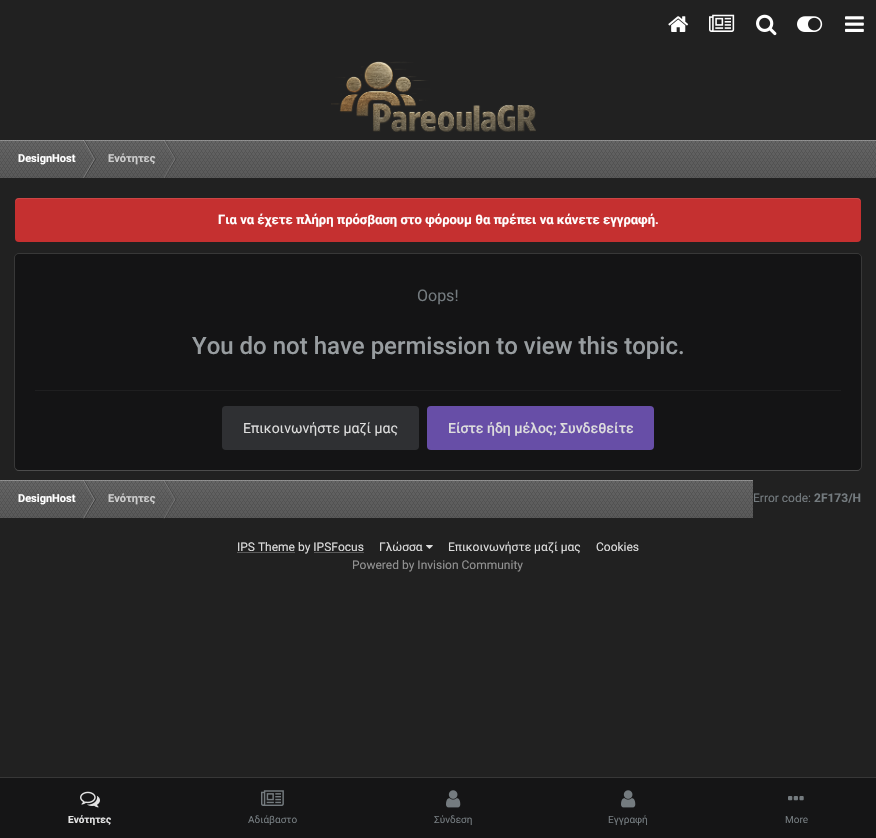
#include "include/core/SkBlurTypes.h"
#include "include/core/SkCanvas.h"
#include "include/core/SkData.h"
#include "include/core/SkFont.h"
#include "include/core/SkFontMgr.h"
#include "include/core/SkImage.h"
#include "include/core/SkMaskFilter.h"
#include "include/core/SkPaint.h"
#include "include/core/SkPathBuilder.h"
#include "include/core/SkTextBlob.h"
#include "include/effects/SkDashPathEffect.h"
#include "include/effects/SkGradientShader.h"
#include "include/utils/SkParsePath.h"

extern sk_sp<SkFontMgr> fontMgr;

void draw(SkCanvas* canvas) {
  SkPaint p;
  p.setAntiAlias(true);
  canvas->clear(SkColorSetRGB(33, 33, 33));
  canvas->drawImageRect(SkImages::DeferredFromEncodedData(SkData::MakeFromFileName("images/1.png")), SkRect::MakeLTRB(668, 16, 689, 32), SkSamplingOptions());
  canvas->drawImageRect(SkImages::DeferredFromEncodedData(SkData::MakeFromFileName("images/2.png")), SkRect::MakeLTRB(709, 14, 735, 32), SkSamplingOptions());
  canvas->drawImageRect(SkImages::DeferredFromEncodedData(SkData::MakeFromFileName("images/3.png")), SkRect::MakeLTRB(756, 14, 777, 36), SkSamplingOptions());
  canvas->drawImageRect(SkImages::DeferredFromEncodedData(SkData::MakeFromFileName("images/4.png")), SkRect::MakeLTRB(797, 16, 823, 32), SkSamplingOptions());
  canvas->drawImageRect(SkImages::DeferredFromEncodedData(SkData::MakeFromFileName("images/5.png")), SkRect::MakeLTRB(845, 16, 864, 32), SkSamplingOptions());
  canvas->drawImageRect(SkImages::DeferredFromEncodedData(SkData::MakeFromFileName("images/6.png")), SkRect::MakeLTRB(331, 61, 536, 132), SkSamplingOptions());
  canvas->drawImageRect(SkImages::DeferredFromEncodedData(SkData::MakeFromFileName("images/7.png")), SkRect::MakeLTRB(0, 140, 876, 178), SkSamplingOptions());
  p.setColor(SkColorSetARGB(77, 255, 255, 255));
  canvas->drawRect(SkRect::MakeLTRB(0, 140, 876, 141), p);
  p.setColor(SkColorSetARGB(64, 255, 255, 255));
  canvas->drawPath(SkPathBuilder().moveTo(83, 140).lineTo(84, 140).lineTo(95, 159).lineTo(94, 159).close().detach(), p);
  p.setColor(SkColorSetARGB(77, 0, 0, 0));
  canvas->drawPath(SkPathBuilder().moveTo(84, 140).lineTo(85, 140).lineTo(96, 159).lineTo(95, 159).close().detach(), p);
  p.setColor(SkColorSetARGB(64, 255, 255, 255));
  canvas->drawPath(SkPathBuilder().moveTo(83, 178).lineTo(84, 178).lineTo(95, 159).lineTo(94, 159).close().detach(), p);
  p.setColor(SkColorSetARGB(77, 0, 0, 0));
  canvas->drawPath(SkPathBuilder().moveTo(84, 178).lineTo(85, 178).lineTo(96, 159).lineTo(95, 159).close().detach(), p);
  p.setColor(SkColorSetARGB(43, 255, 255, 255));
  canvas->drawPath(SkPathBuilder().moveTo(163.5f, 140).lineTo(164.5f, 140).lineTo(175.5f, 159).lineTo(174.5f, 159).close().detach(), p);
  p.setColor(SkColorSetARGB(54, 0, 0, 0));
  canvas->drawPath(SkPathBuilder().moveTo(164.5f, 140).lineTo(165.5f, 140).lineTo(176.5f, 159).lineTo(175.5f, 159).close().detach(), p);
  p.setColor(SkColorSetARGB(43, 255, 255, 255));
  canvas->drawPath(SkPathBuilder().moveTo(163.5f, 178).lineTo(164.5f, 178).lineTo(175.5f, 159).lineTo(174.5f, 159).close().detach(), p);
  p.setColor(SkColorSetARGB(54, 0, 0, 0));
  canvas->drawPath(SkPathBuilder().moveTo(164.5f, 178).lineTo(165.5f, 178).lineTo(176.5f, 159).lineTo(175.5f, 159).close().detach(), p);
  p.setColor(SkColorSetRGB(197, 48, 48));
  canvas->drawRoundRect(SkRect::MakeLTRB(15, 198, 861, 242), 4, 4, p);
  p.setColor(SkColorSetARGB(26, 255, 255, 255));
  canvas->drawPath(SkPathBuilder().moveTo(19, 199).lineTo(857, 199).cubicTo(859, 199, 861, 201, 861, 203).cubicTo(861, 200, 860, 198, 857, 198).lineTo(19, 198).cubicTo(16, 198, 15, 200, 15, 203).cubicTo(15, 201, 17, 199, 19, 199).close().detach(), p);
  p.setColor(SkColorSetRGB(55, 55, 55));
  canvas->drawPath(SkPathBuilder().moveTo(15, 466).cubicTo(15, 469, 16, 471, 19, 471).lineTo(857, 471).cubicTo(860, 471, 861, 469, 861, 466).cubicTo(861, 468, 859, 470, 857, 470).lineTo(19, 470).cubicTo(17, 470, 15, 468, 15, 466).close().detach(), p);
  p.setStyle(SkPaint::kStroke_Style);
  p.setStrokeWidth(1);
  p.setColor(SkColorSetARGB(26, 255, 255, 255));
  canvas->drawRoundRect(SkRect::MakeLTRB(14.5f, 253.5f, 861.5f, 470.5f), 4.5f, 4.5f, p);
  p.setStyle(SkPaint::kFill_Style);
  p.setColor(SkColorSetARGB(217, 18, 18, 19));
  canvas->drawRoundRect(SkRect::MakeLTRB(15, 254, 861, 470), 4, 4, p);
  p.setColor(SkColorSetRGB(31, 31, 32));
  canvas->drawRect(SkRect::MakeLTRB(35, 390, 841, 391), p);
  p.setColor(SkColorSetRGB(47, 48, 51));
  canvas->drawRoundRect(SkRect::MakeLTRB(222, 406, 419, 450), 4, 4, p);
  p.setColor(SkColorSetRGB(103, 78, 167));
  canvas->drawRoundRect(SkRect::MakeLTRB(427, 406, 654, 450), 4, 4, p);
  canvas->drawImageRect(SkImages::DeferredFromEncodedData(SkData::MakeFromFileName("images/8.png")), SkRect::MakeLTRB(0, 480, 753, 518), SkSamplingOptions());
  p.setColor(SkColorSetARGB(77, 255, 255, 255));
  canvas->drawRect(SkRect::MakeLTRB(0, 480, 753, 481), p);
  p.setColor(SkColorSetARGB(64, 255, 255, 255));
  canvas->drawPath(SkPathBuilder().moveTo(83, 480.5f).lineTo(84, 480.5f).lineTo(95, 499.5f).lineTo(94, 499.5f).close().detach(), p);
  p.setColor(SkColorSetARGB(77, 0, 0, 0));
  canvas->drawPath(SkPathBuilder().moveTo(84, 480.5f).lineTo(85, 480.5f).lineTo(96, 499.5f).lineTo(95, 499.5f).close().detach(), p);
  p.setColor(SkColorSetARGB(64, 255, 255, 255));
  canvas->drawPath(SkPathBuilder().moveTo(83, 518.5f).lineTo(84, 518.5f).lineTo(95, 499.5f).lineTo(94, 499.5f).close().detach(), p);
  p.setColor(SkColorSetARGB(77, 0, 0, 0));
  canvas->drawPath(SkPathBuilder().moveTo(84, 518.5f).lineTo(85, 518.5f).lineTo(96, 499.5f).lineTo(95, 499.5f).close().detach(), p);
  p.setColor(SkColorSetARGB(43, 255, 255, 255));
  canvas->drawPath(SkPathBuilder().moveTo(163.5f, 480.5f).lineTo(164.5f, 480.5f).lineTo(175.5f, 499.5f).lineTo(174.5f, 499.5f).close().detach(), p);
  p.setColor(SkColorSetARGB(54, 0, 0, 0));
  canvas->drawPath(SkPathBuilder().moveTo(164.5f, 480.5f).lineTo(165.5f, 480.5f).lineTo(176.5f, 499.5f).lineTo(175.5f, 499.5f).close().detach(), p);
  p.setColor(SkColorSetARGB(43, 255, 255, 255));
  canvas->drawPath(SkPathBuilder().moveTo(163.5f, 518.5f).lineTo(164.5f, 518.5f).lineTo(175.5f, 499.5f).lineTo(174.5f, 499.5f).close().detach(), p);
  p.setColor(SkColorSetARGB(54, 0, 0, 0));
  canvas->drawPath(SkPathBuilder().moveTo(164.5f, 518.5f).lineTo(165.5f, 518.5f).lineTo(176.5f, 499.5f).lineTo(175.5f, 499.5f).close().detach(), p);
  p.setColor(SkColorSetRGB(89, 89, 89));
  canvas->drawRect(SkRect::MakeLTRB(237, 552, 295, 553), p);
  canvas->drawImageRect(SkImages::DeferredFromEncodedData(SkData::MakeFromFileName("images/9.png")), SkRect::MakeLTRB(426, 545, 433, 549), SkSamplingOptions());
  p.setColor(SkColorSetRGB(55, 55, 55));
  canvas->drawRect(SkRect::MakeLTRB(0, 777, 876, 778), p);
  p.setColor(SkColorSetRGB(21, 21, 22));
  canvas->drawRect(SkRect::MakeLTRB(0, 778, 876, 838), p);
  canvas->drawImageRect(SkImages::DeferredFromEncodedData(SkData::MakeFromFileName("images/10.png")), SkRect::MakeLTRB(80, 791, 100, 808), SkSamplingOptions());
  canvas->drawImageRect(SkImages::DeferredFromEncodedData(SkData::MakeFromFileName("images/11.png")), SkRect::MakeLTRB(261, 790, 284, 806), SkSamplingOptions());
  canvas->drawImageRect(SkImages::DeferredFromEncodedData(SkData::MakeFromFileName("images/12.png")), SkRect::MakeLTRB(446, 790, 461, 808), SkSamplingOptions());
  canvas->drawImageRect(SkImages::DeferredFromEncodedData(SkData::MakeFromFileName("images/12.png")), SkRect::MakeLTRB(621, 790, 636, 808), SkSamplingOptions());
  canvas->drawImageRect(SkImages::DeferredFromEncodedData(SkData::MakeFromFileName("images/13.png")), SkRect::MakeLTRB(788, 796, 804, 801), SkSamplingOptions());
  SkFont font1(fontMgr->matchFamilyStyle("Roboto", SkFontStyle::Bold()), 11);
  font1.setSubpixel(true);
  p.setColor(SK_ColorWHITE);
  canvas->drawString("DesignHost", 18, 162, font1, p);
  p.setColor(SkColorSetRGB(206, 206, 206));
  canvas->drawString("Ενότητες", 108, 162, font1, p);
  SkFont font2(fontMgr->matchFamilyStyle("Roboto", SkFontStyle::Bold()), 13);
  font2.setSubpixel(true);
  p.setColor(SK_ColorWHITE);
  canvas->drawString("Για να έχετε πλήρη πρόσβαση στο φόρουμ θα πρέπει να κάνετε εγγραφή.", 218, 224, font2, p);
  SkFont font3(fontMgr->matchFamilyStyle("Roboto", SkFontStyle::Normal()), 16);
  font3.setSubpixel(true);
  p.setColor(SkColorSetRGB(116, 123, 127));
  canvas->drawString("Oops!", 417, 301, font3, p);
  SkFont font4(fontMgr->matchFamilyStyle("Roboto", SkFontStyle(500, SkFontStyle::kNormal_Width, SkFontStyle::kUpright_Slant)), 24);
  font4.setSubpixel(true);
  p.setColor(SkColorSetRGB(152, 157, 160));
  canvas->drawString("You do not have permission to view this topic.", 192, 354, font4, p);
  SkFont font5(fontMgr->matchFamilyStyle("Roboto", SkFontStyle::Normal()), 14);
  font5.setSubpixel(true);
  p.setColor(SkColorSetRGB(221, 221, 221));
  canvas->drawString("Επικοινωνήστε μαζί μας", 243, 433, font5, p);
  SkFont font6(fontMgr->matchFamilyStyle("Roboto", SkFontStyle(500, SkFontStyle::kNormal_Width, SkFontStyle::kUpright_Slant)), 14);
  font6.setSubpixel(true);
  canvas->drawString("Είστε ήδη μέλος; Συνδεθείτε", 448, 433, font6, p);
  SkFont font7(fontMgr->matchFamilyStyle("Roboto", SkFontStyle::Normal()), 12);
  font7.setSubpixel(true);
  p.setColor(SkColorSetRGB(116, 123, 127));
  canvas->drawString("Error code:", 753, 502, font7, p);
  SkFont font8(fontMgr->matchFamilyStyle("Roboto", SkFontStyle::Bold()), 12);
  font8.setSubpixel(true);
  canvas->drawString("2F173/H", 814, 502, font8, p);
  p.setColor(SK_ColorWHITE);
  canvas->drawString("DesignHost", 18, 502, font1, p);
  p.setColor(SkColorSetRGB(206, 206, 206));
  canvas->drawString("Ενότητες", 108, 502, font1, p);
  p.setColor(SkColorSetRGB(221, 221, 221));
  canvas->drawString("IPS Theme by IPSFocus", 237, 551, font7, p);
  p.setColor(SkColorSetRGB(89, 89, 89));
  canvas->drawRect(SkRect::MakeLTRB(314, 552, 364, 553), p);
  p.setColor(SkColorSetRGB(221, 221, 221));
  canvas->drawString("Γλώσσα", 379, 551, font7, p);
  canvas->drawString("Επικοινωνήστε μαζί μας", 448, 551, font7, p);
  canvas->drawString("Cookies", 596, 551, font7, p);
  p.setColor(SkColorSetRGB(146, 146, 146));
  canvas->drawString("Powered by Invision Community", 352, 569, font7, p);
  SkFont font9(fontMgr->matchFamilyStyle("Roboto", SkFontStyle::Bold()), 10);
  font9.setSubpixel(true);
  p.setColor(SkColorSetRGB(227, 227, 227));
  canvas->drawString("Ενότητες", 68, 823, font9, p);
  SkFont font10(fontMgr->matchFamilyStyle("Roboto", SkFontStyle::Normal()), 10);
  font10.setSubpixel(true);
  p.setColor(SkColorSetRGB(116, 123, 127));
  canvas->drawString("Αδιάβαστο", 248, 823, font10, p);
  canvas->drawString("Σύνδεση", 434, 823, font10, p);
  canvas->drawString("Εγγραφή", 608, 823, font10, p);
  canvas->drawString("More", 785, 823, font10, p);
}
